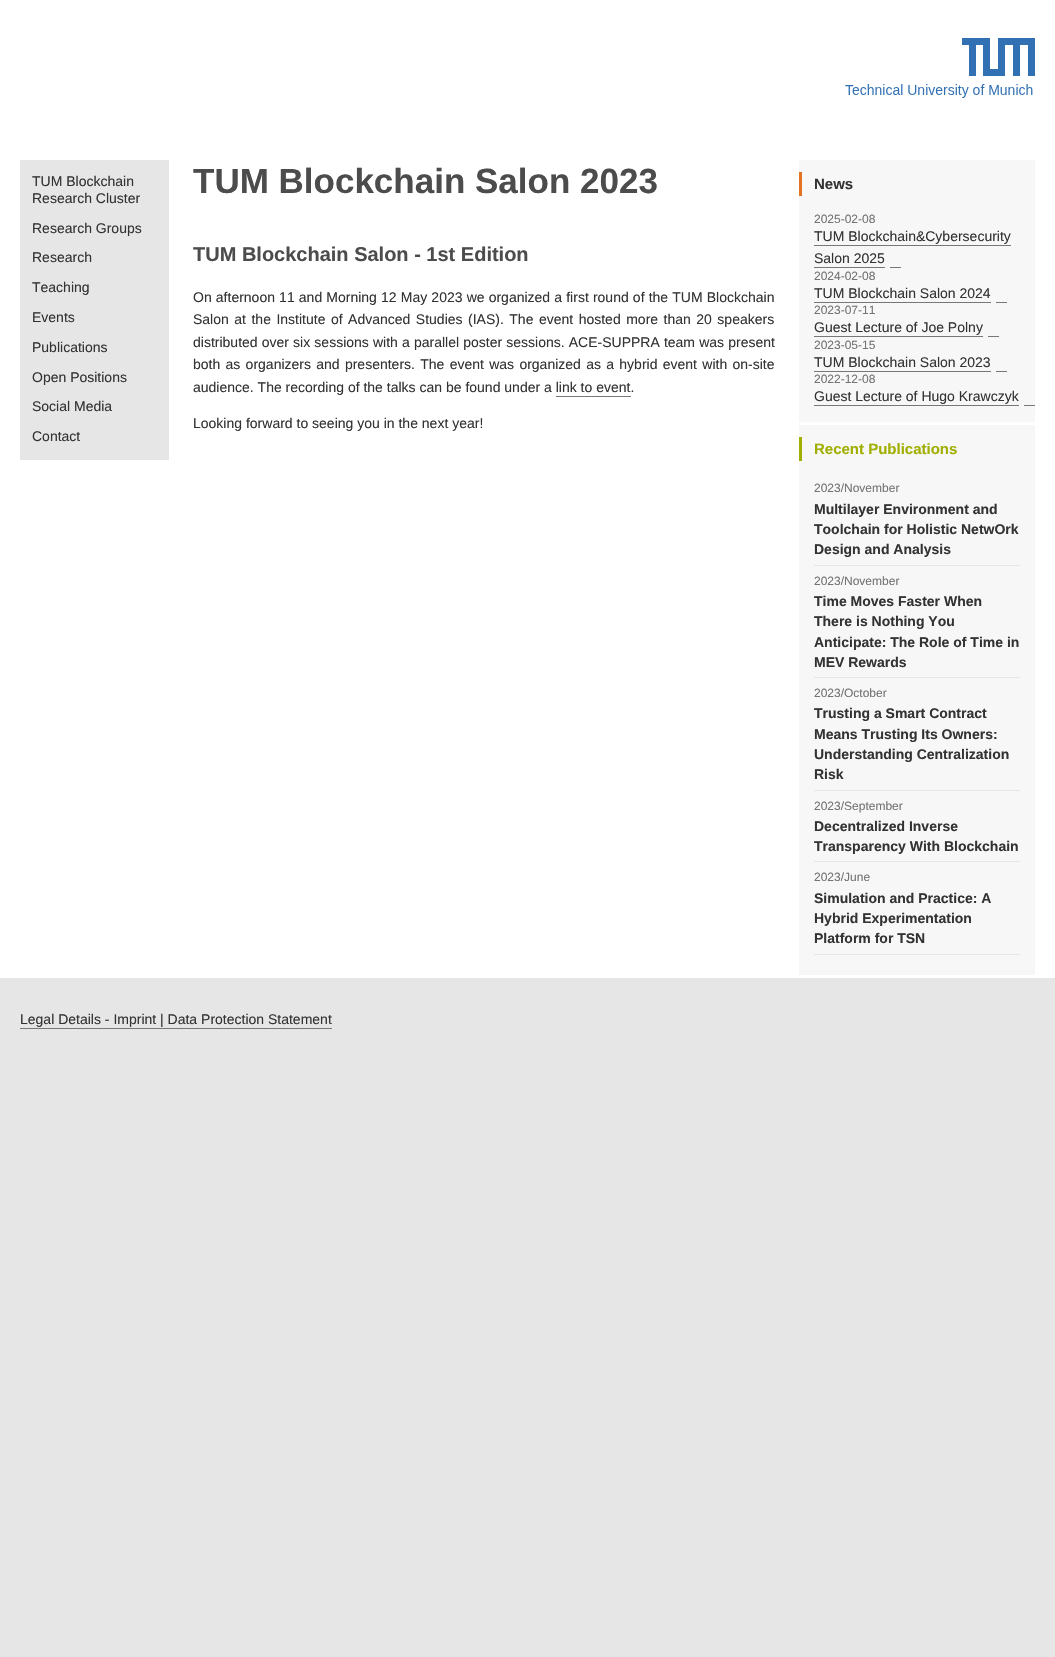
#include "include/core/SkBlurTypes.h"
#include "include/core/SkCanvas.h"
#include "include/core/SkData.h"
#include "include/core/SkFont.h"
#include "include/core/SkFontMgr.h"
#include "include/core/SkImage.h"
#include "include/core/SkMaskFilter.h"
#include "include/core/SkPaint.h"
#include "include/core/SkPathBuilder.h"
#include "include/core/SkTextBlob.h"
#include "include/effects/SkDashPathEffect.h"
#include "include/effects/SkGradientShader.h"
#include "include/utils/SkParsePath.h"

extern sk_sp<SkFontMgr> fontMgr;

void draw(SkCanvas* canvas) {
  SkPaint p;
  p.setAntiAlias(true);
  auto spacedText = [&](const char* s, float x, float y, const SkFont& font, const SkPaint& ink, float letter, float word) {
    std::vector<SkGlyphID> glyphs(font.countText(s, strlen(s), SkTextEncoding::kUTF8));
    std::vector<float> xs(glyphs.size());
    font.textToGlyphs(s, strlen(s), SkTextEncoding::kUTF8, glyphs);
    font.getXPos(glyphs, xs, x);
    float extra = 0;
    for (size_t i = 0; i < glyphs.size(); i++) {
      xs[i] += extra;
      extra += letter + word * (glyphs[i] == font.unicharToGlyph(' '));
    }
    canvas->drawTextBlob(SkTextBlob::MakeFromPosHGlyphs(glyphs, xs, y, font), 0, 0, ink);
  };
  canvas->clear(SkColorSetRGB(230, 230, 230));
  p.setColor(SK_ColorWHITE);
  canvas->drawRect(SkRect::MakeLTRB(0, 0, 1055, 978), p);
  canvas->drawImageRect(SkImages::DeferredFromEncodedData(SkData::MakeFromFileName("images/1.png")), SkRect::MakeLTRB(962, 38, 1035, 76), SkSamplingOptions());
  canvas->drawImageRect(SkImages::DeferredFromEncodedData(SkData::MakeFromFileName("images/2.png")), SkRect::MakeLTRB(845, 84, 1033, 98), SkSamplingOptions());
  p.setColor(SkColorSetRGB(230, 230, 230));
  canvas->drawRect(SkRect::MakeLTRB(20, 160, 169, 460), p);
  p.setColor(SkColorSetRGB(119, 119, 119));
  canvas->drawRect(SkRect::MakeLTRB(556, 396, 631, 397), p);
  p.setColor(SkColorSetRGB(247, 247, 247));
  canvas->drawRect(SkRect::MakeLTRB(799, 160, 1035, 422), p);
  p.setColor(SkColorSetRGB(227, 114, 34));
  canvas->drawRect(SkRect::MakeLTRB(799, 172, 802, 196), p);
  p.setColor(SkColorSetRGB(119, 119, 119));
  canvas->drawRect(SkRect::MakeLTRB(814, 245, 1011, 246), p);
  canvas->drawRect(SkRect::MakeLTRB(814, 267, 885, 268), p);
  canvas->drawRect(SkRect::MakeLTRB(890, 267, 901, 268), p);
  canvas->drawRect(SkRect::MakeLTRB(814, 302, 991, 303), p);
  canvas->drawRect(SkRect::MakeLTRB(996, 302, 1007, 303), p);
  canvas->drawRect(SkRect::MakeLTRB(814, 336, 983, 337), p);
  canvas->drawRect(SkRect::MakeLTRB(988, 336, 999, 337), p);
  canvas->drawRect(SkRect::MakeLTRB(814, 371, 991, 372), p);
  canvas->drawRect(SkRect::MakeLTRB(996, 371, 1007, 372), p);
  canvas->drawRect(SkRect::MakeLTRB(814, 405, 1019, 406), p);
  canvas->drawRect(SkRect::MakeLTRB(1024, 405, 1035, 406), p);
  p.setColor(SkColorSetRGB(247, 247, 247));
  canvas->drawRect(SkRect::MakeLTRB(799, 425, 1035, 975), p);
  p.setColor(SkColorSetRGB(160, 175, 0));
  canvas->drawRect(SkRect::MakeLTRB(799, 437, 802, 461), p);
  p.setColor(SkColorSetRGB(230, 230, 230));
  canvas->drawRect(SkRect::MakeLTRB(814, 565, 1020, 566), p);
  canvas->drawRect(SkRect::MakeLTRB(814, 677, 1020, 678), p);
  canvas->drawRect(SkRect::MakeLTRB(814, 790, 1020, 791), p);
  canvas->drawRect(SkRect::MakeLTRB(814, 861, 1020, 862), p);
  canvas->drawRect(SkRect::MakeLTRB(814, 954, 1020, 955), p);
  p.setColor(SkColorSetRGB(119, 119, 119));
  canvas->drawRect(SkRect::MakeLTRB(20, 1028, 332, 1029), p);
  SkFont font1(fontMgr->matchFamilyStyle("Liberation Sans", SkFontStyle::Normal()), 14);
  font1.setSubpixel(true);
  p.setColor(SkColorSetRGB(51, 51, 51));
  canvas->drawString("TUM Blockchain", 32, 186, font1, p);
  canvas->drawString("Research Cluster", 32, 203, font1, p);
  canvas->drawString("Research Groups", 32, 233, font1, p);
  canvas->drawString("Research", 32, 262, font1, p);
  canvas->drawString("Teaching", 32, 292, font1, p);
  canvas->drawString("Events", 32, 322, font1, p);
  canvas->drawString("Publications", 32, 352, font1, p);
  canvas->drawString("Open Positions", 32, 382, font1, p);
  canvas->drawString("Social Media", 32, 411, font1, p);
  canvas->drawString("Contact", 32, 441, font1, p);
  SkFont font2(fontMgr->matchFamilyStyle("Liberation Sans", SkFontStyle::Bold()), 35);
  font2.setSubpixel(true);
  p.setColor(SkColorSetRGB(76, 76, 76));
  canvas->drawString("TUM Blockchain Salon 2023", 193, 193, font2, p);
  SkFont font3(fontMgr->matchFamilyStyle("Liberation Sans", SkFontStyle::Bold()), 20);
  font3.setSubpixel(true);
  canvas->drawString("TUM Blockchain Salon - 1st Edition", 193, 261, font3, p);
  p.setColor(SkColorSetRGB(51, 51, 51));
  spacedText("On afternoon 11 and Morning 12 May 2023 we organized a first round of the TUM Blockchain", 193, 302, font1, p, 0, 0.25f);
  spacedText("Salon at the Institute of Advanced Studies (IAS). The event hosted more than 20 speakers", 193, 324, font1, p, 0, 1.6f);
  spacedText("distributed over six sessions with a parallel poster sessions. ACE-SUPPRA team was present", 193, 347, font1, p, 0, 0.25f);
  spacedText("both as organizers and presenters. The event was organized as a hybrid event with on-site", 193, 369, font1, p, 0, 1.4f);
  canvas->drawString("audience. The recording of the talks can be found under a link to event.", 193, 392, font1, p);
  canvas->drawString("Looking forward to seeing you in the next year!", 193, 428, font1, p);
  SkFont font4(fontMgr->matchFamilyStyle("Liberation Sans", SkFontStyle::Bold()), 15);
  font4.setSubpixel(true);
  canvas->drawString("News", 814, 189, font4, p);
  SkFont font5(fontMgr->matchFamilyStyle("Liberation Sans", SkFontStyle::Normal()), 12);
  font5.setSubpixel(true);
  p.setColor(SkColorSetRGB(115, 115, 115));
  canvas->drawString("2025-02-08", 814, 223, font5, p);
  p.setColor(SkColorSetRGB(51, 51, 51));
  canvas->drawString("TUM Blockchain&Cybersecurity", 814, 241, font1, p);
  canvas->drawString("Salon 2025", 814, 263, font1, p);
  p.setColor(SkColorSetRGB(115, 115, 115));
  canvas->drawString("2024-02-08", 814, 280, font5, p);
  p.setColor(SkColorSetRGB(51, 51, 51));
  canvas->drawString("TUM Blockchain Salon 2024", 814, 298, font1, p);
  p.setColor(SkColorSetRGB(115, 115, 115));
  canvas->drawString("2023-07-11", 814, 314, font5, p);
  p.setColor(SkColorSetRGB(51, 51, 51));
  canvas->drawString("Guest Lecture of Joe Polny", 814, 332, font1, p);
  p.setColor(SkColorSetRGB(115, 115, 115));
  canvas->drawString("2023-05-15", 814, 349, font5, p);
  p.setColor(SkColorSetRGB(51, 51, 51));
  canvas->drawString("TUM Blockchain Salon 2023", 814, 367, font1, p);
  p.setColor(SkColorSetRGB(115, 115, 115));
  canvas->drawString("2022-12-08", 814, 383, font5, p);
  p.setColor(SkColorSetRGB(51, 51, 51));
  canvas->drawString("Guest Lecture of Hugo Krawczyk", 814, 401, font1, p);
  p.setColor(SkColorSetRGB(160, 175, 0));
  canvas->drawString("Recent Publications", 814, 454, font4, p);
  p.setColor(SkColorSetRGB(115, 115, 115));
  canvas->drawString("2023/November", 814, 492, font5, p);
  SkFont font6(fontMgr->matchFamilyStyle("Liberation Sans", SkFontStyle::Bold()), 14);
  font6.setSubpixel(true);
  p.setColor(SkColorSetRGB(51, 51, 51));
  canvas->drawString("Multilayer Environment and", 814, 514, font6, p);
  canvas->drawString("Toolchain for Holistic NetwOrk", 814, 534, font6, p);
  canvas->drawString("Design and Analysis", 814, 554, font6, p);
  p.setColor(SkColorSetRGB(115, 115, 115));
  canvas->drawString("2023/November", 814, 585, font5, p);
  p.setColor(SkColorSetRGB(51, 51, 51));
  canvas->drawString("Time Moves Faster When", 814, 606, font6, p);
  canvas->drawString("There is Nothing You", 814, 626, font6, p);
  canvas->drawString("Anticipate: The Role of Time in", 814, 647, font6, p);
  canvas->drawString("MEV Rewards", 814, 667, font6, p);
  p.setColor(SkColorSetRGB(115, 115, 115));
  canvas->drawString("2023/October", 814, 697, font5, p);
  p.setColor(SkColorSetRGB(51, 51, 51));
  canvas->drawString("Trusting a Smart Contract", 814, 718, font6, p);
  canvas->drawString("Means Trusting Its Owners:", 814, 739, font6, p);
  canvas->drawString("Understanding Centralization", 814, 759, font6, p);
  canvas->drawString("Risk", 814, 779, font6, p);
  p.setColor(SkColorSetRGB(115, 115, 115));
  canvas->drawString("2023/September", 814, 810, font5, p);
  p.setColor(SkColorSetRGB(51, 51, 51));
  canvas->drawString("Decentralized Inverse", 814, 831, font6, p);
  canvas->drawString("Transparency With Blockchain", 814, 851, font6, p);
  p.setColor(SkColorSetRGB(115, 115, 115));
  canvas->drawString("2023/June", 814, 881, font5, p);
  p.setColor(SkColorSetRGB(51, 51, 51));
  canvas->drawString("Simulation and Practice: A", 814, 903, font6, p);
  canvas->drawString("Hybrid Experimentation", 814, 923, font6, p);
  canvas->drawString("Platform for TSN", 814, 943, font6, p);
  canvas->drawString("Legal Details - Imprint | Data Protection Statement", 20, 1024, font1, p);
}
